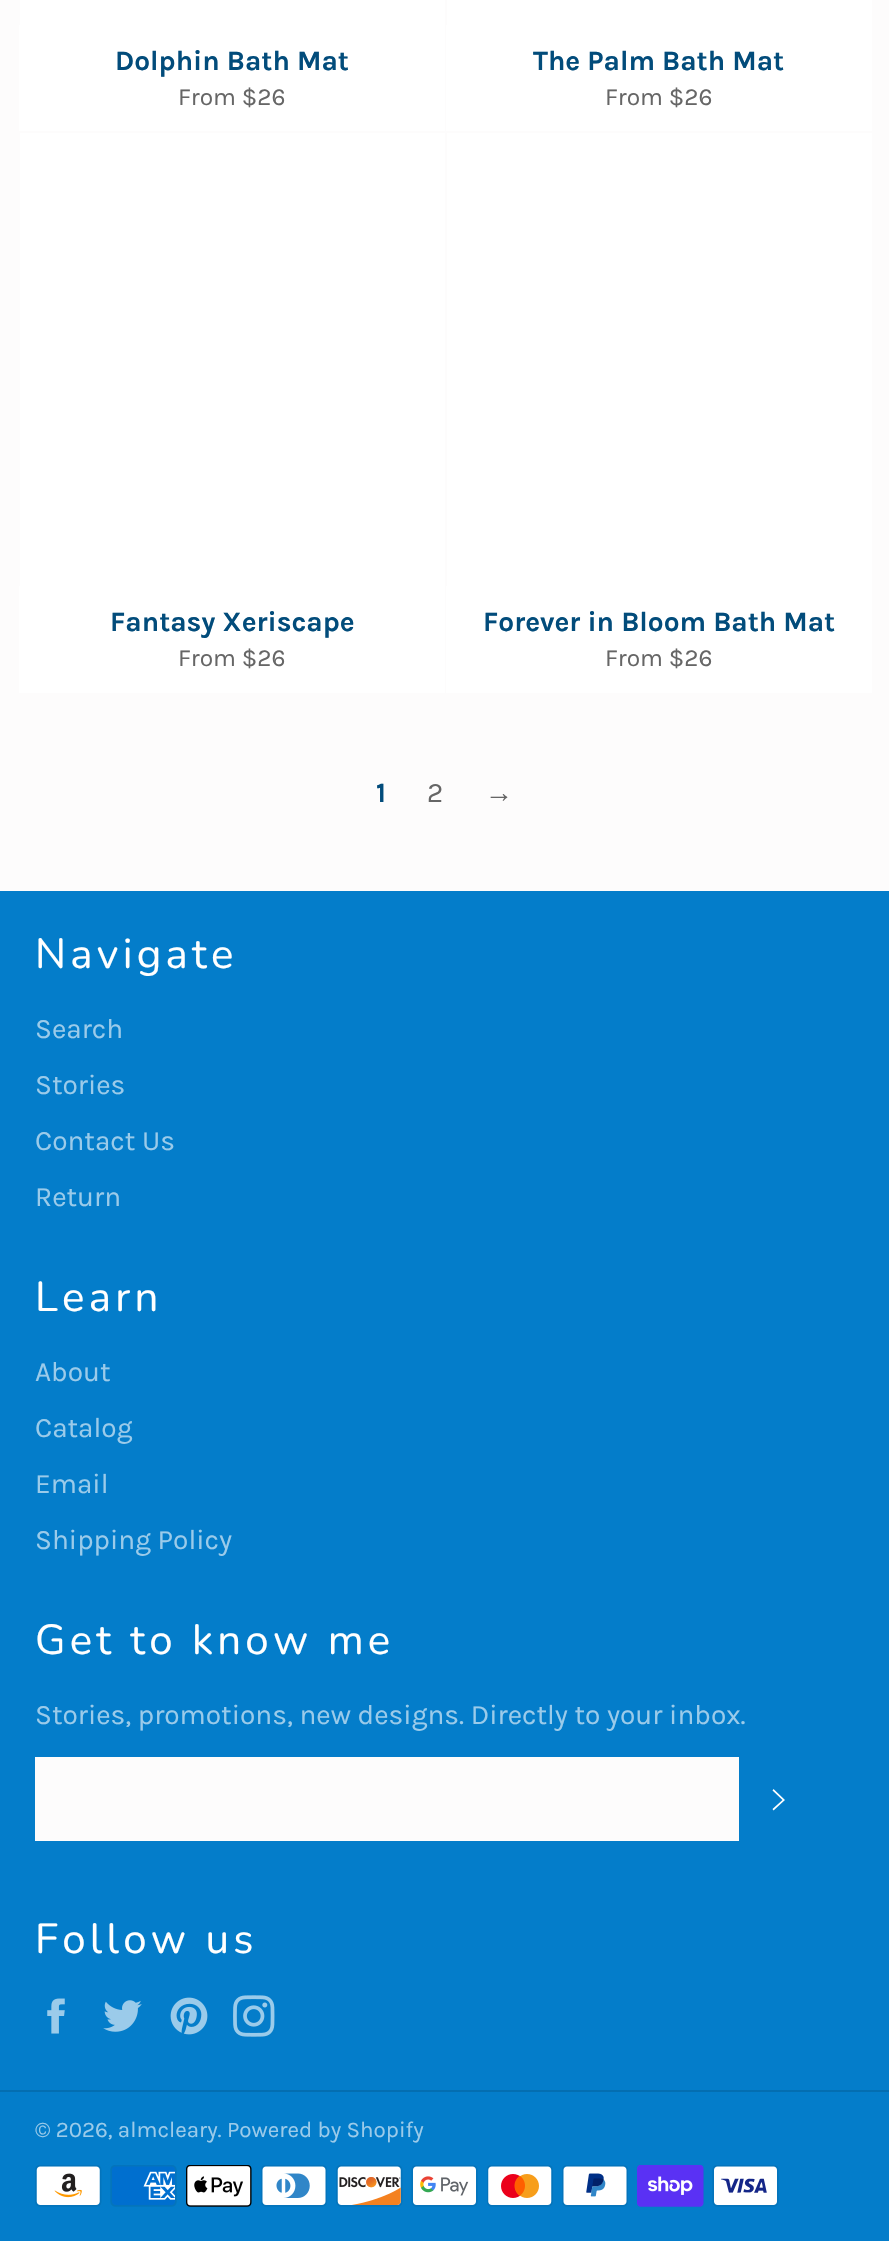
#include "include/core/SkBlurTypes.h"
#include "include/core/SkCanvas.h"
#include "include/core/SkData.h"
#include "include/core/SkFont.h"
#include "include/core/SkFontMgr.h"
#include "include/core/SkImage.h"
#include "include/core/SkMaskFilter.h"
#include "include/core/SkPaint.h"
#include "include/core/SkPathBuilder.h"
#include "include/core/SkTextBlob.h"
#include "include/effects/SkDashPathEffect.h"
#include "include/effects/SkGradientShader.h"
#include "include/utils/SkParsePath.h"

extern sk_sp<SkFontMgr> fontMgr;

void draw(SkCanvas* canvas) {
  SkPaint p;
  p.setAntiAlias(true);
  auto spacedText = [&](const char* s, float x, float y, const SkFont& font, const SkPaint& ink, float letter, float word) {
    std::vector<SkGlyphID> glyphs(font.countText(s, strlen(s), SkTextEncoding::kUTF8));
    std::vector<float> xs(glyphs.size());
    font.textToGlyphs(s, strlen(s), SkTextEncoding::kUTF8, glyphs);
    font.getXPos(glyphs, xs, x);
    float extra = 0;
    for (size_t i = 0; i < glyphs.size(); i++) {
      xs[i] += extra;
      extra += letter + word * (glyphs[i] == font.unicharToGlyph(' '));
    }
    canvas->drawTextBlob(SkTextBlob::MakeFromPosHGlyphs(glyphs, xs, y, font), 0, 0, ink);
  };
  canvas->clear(SkColorSetRGB(253, 252, 252));
  p.setColor(SK_ColorWHITE);
  canvas->drawRect(SkRect::MakeLTRB(20, 0, 445, 25), p);
  canvas->drawRect(SkRect::MakeLTRB(19, 25, 445, 131), p);
  canvas->drawRect(SkRect::MakeLTRB(447, 0, 872, 25), p);
  canvas->drawRect(SkRect::MakeLTRB(446, 25, 872, 131), p);
  canvas->drawRect(SkRect::MakeLTRB(20, 133, 445, 586), p);
  canvas->drawRect(SkRect::MakeLTRB(19, 586, 445, 693), p);
  canvas->drawRect(SkRect::MakeLTRB(447, 133, 872, 586), p);
  canvas->drawRect(SkRect::MakeLTRB(446, 586, 872, 693), p);
  p.setColor(SkColorSetRGB(4, 125, 202));
  canvas->drawRect(SkRect::MakeLTRB(0, 891, 889, 2241), p);
  p.setColor(SkColorSetRGB(253, 252, 252));
  canvas->drawRect(SkRect::MakeLTRB(35, 1757, 739, 1841), p);
  p.setColor(SK_ColorWHITE);
  canvas->drawPath(SkPathBuilder().moveTo(772.5f, 1790.5f).lineTo(773.5f, 1789).lineTo(785, 1800).lineTo(773.5f, 1810.5f).lineTo(772.5f, 1809).lineTo(782.5f, 1800).close().detach(), p);
  canvas->drawImageRect(SkImages::DeferredFromEncodedData(SkData::MakeFromFileName("images/1.png")), SkRect::MakeLTRB(47, 1998, 65, 2034), SkSamplingOptions());
  canvas->drawImageRect(SkImages::DeferredFromEncodedData(SkData::MakeFromFileName("images/2.png")), SkRect::MakeLTRB(103, 2000, 142, 2032), SkSamplingOptions());
  canvas->drawImageRect(SkImages::DeferredFromEncodedData(SkData::MakeFromFileName("images/3.png")), SkRect::MakeLTRB(170, 1997, 208, 2035), SkSamplingOptions());
  canvas->drawImageRect(SkImages::DeferredFromEncodedData(SkData::MakeFromFileName("images/4.png")), SkRect::MakeLTRB(233, 1995, 275, 2037), SkSamplingOptions());
  p.setColor(SkColorSetRGB(4, 110, 177));
  canvas->drawRect(SkRect::MakeLTRB(0, 2090, 889, 2092), p);
  canvas->drawImageRect(SkImages::DeferredFromEncodedData(SkData::MakeFromFileName("images/5.png")), SkRect::MakeLTRB(35, 2165, 102, 2207), SkSamplingOptions());
  canvas->drawImageRect(SkImages::DeferredFromEncodedData(SkData::MakeFromFileName("images/6.png")), SkRect::MakeLTRB(110, 2165, 177, 2207), SkSamplingOptions());
  canvas->drawImageRect(SkImages::DeferredFromEncodedData(SkData::MakeFromFileName("images/7.png")), SkRect::MakeLTRB(186, 2165, 252, 2207), SkSamplingOptions());
  canvas->drawImageRect(SkImages::DeferredFromEncodedData(SkData::MakeFromFileName("images/8.png")), SkRect::MakeLTRB(261, 2165, 327, 2207), SkSamplingOptions());
  canvas->drawImageRect(SkImages::DeferredFromEncodedData(SkData::MakeFromFileName("images/9.png")), SkRect::MakeLTRB(336, 2165, 403, 2207), SkSamplingOptions());
  canvas->drawImageRect(SkImages::DeferredFromEncodedData(SkData::MakeFromFileName("images/10.png")), SkRect::MakeLTRB(411, 2165, 478, 2207), SkSamplingOptions());
  canvas->drawImageRect(SkImages::DeferredFromEncodedData(SkData::MakeFromFileName("images/11.png")), SkRect::MakeLTRB(487, 2165, 553, 2207), SkSamplingOptions());
  canvas->drawImageRect(SkImages::DeferredFromEncodedData(SkData::MakeFromFileName("images/12.png")), SkRect::MakeLTRB(562, 2165, 628, 2207), SkSamplingOptions());
  canvas->drawImageRect(SkImages::DeferredFromEncodedData(SkData::MakeFromFileName("images/13.png")), SkRect::MakeLTRB(637, 2165, 704, 2207), SkSamplingOptions());
  canvas->drawImageRect(SkImages::DeferredFromEncodedData(SkData::MakeFromFileName("images/14.png")), SkRect::MakeLTRB(712, 2165, 779, 2207), SkSamplingOptions());
  SkFont font1(fontMgr->matchFamilyStyle("Karla", SkFontStyle::Bold()), 28);
  font1.setSubpixel(true);
  p.setColor(SkColorSetRGB(2, 76, 123));
  canvas->drawString("Dolphin Bath Mat", 115, 70, font1, p);
  SkFont font2(fontMgr->matchFamilyStyle("Karla", SkFontStyle::Normal()), 24.5f);
  font2.setSubpixel(true);
  p.setColor(SkColorSetRGB(102, 102, 102));
  canvas->drawString("From $26", 178, 105, font2, p);
  p.setColor(SkColorSetRGB(2, 76, 123));
  canvas->drawString("The Palm Bath Mat", 533, 70, font1, p);
  p.setColor(SkColorSetRGB(102, 102, 102));
  canvas->drawString("From $26", 605, 105, font2, p);
  p.setColor(SkColorSetRGB(2, 76, 123));
  canvas->drawString("Fantasy Xeriscape", 110, 631, font1, p);
  p.setColor(SkColorSetRGB(102, 102, 102));
  canvas->drawString("From $26", 178, 666, font2, p);
  p.setColor(SkColorSetRGB(2, 76, 123));
  canvas->drawString("Forever in Bloom Bath Mat", 483, 631, font1, p);
  p.setColor(SkColorSetRGB(102, 102, 102));
  canvas->drawString("From $26", 605, 666, font2, p);
  p.setColor(SkColorSetRGB(2, 76, 123));
  canvas->drawString("1", 376, 802, font1, p);
  SkFont font3(fontMgr->matchFamilyStyle("Karla", SkFontStyle::Normal()), 28);
  font3.setSubpixel(true);
  p.setColor(SkColorSetRGB(102, 102, 102));
  canvas->drawString("2", 427, 802, font3, p);
  SkFont font4(fontMgr->matchFamilyStyle("Liberation Sans", SkFontStyle::Normal()), 28);
  font4.setSubpixel(true);
  canvas->drawString("→", 485, 802, font4, p);
  SkFont font5(fontMgr->matchFamilyStyle("Nunito", SkFontStyle::Normal()), 42);
  font5.setSubpixel(true);
  p.setColor(SK_ColorWHITE);
  spacedText("Navigate", 35, 968, font5, p, 4.25f, 0);
  p.setColor(SkColorSetRGB(155, 203, 234));
  canvas->drawString("Search", 35, 1038, font3, p);
  canvas->drawString("Stories", 35, 1094, font3, p);
  canvas->drawString("Contact Us", 35, 1150, font3, p);
  canvas->drawString("Return", 35, 1206, font3, p);
  p.setColor(SK_ColorWHITE);
  spacedText("Learn", 35, 1311, font5, p, 4.25f, 0);
  p.setColor(SkColorSetRGB(155, 203, 234));
  canvas->drawString("About", 35, 1381, font3, p);
  canvas->drawString("Catalog", 35, 1437, font3, p);
  canvas->drawString("Email", 35, 1493, font3, p);
  canvas->drawString("Shipping Policy", 35, 1549, font3, p);
  p.setColor(SK_ColorWHITE);
  spacedText("Get to know me", 35, 1654, font5, p, 4.25f, 0);
  p.setColor(SkColorSetRGB(155, 203, 234));
  canvas->drawString("Stories, promotions, new designs. Directly to your inbox.", 35, 1724, font3, p);
  p.setColor(SK_ColorWHITE);
  spacedText("Follow us", 35, 1953, font5, p, 4.25f, 0);
  SkFont font6(fontMgr->matchFamilyStyle("Karla", SkFontStyle::Normal()), 22.4f);
  font6.setSubpixel(true);
  p.setColor(SkColorSetRGB(155, 203, 234));
  canvas->drawString("© 2026, almcleary. Powered by Shopify", 35, 2137, font6, p);
}
